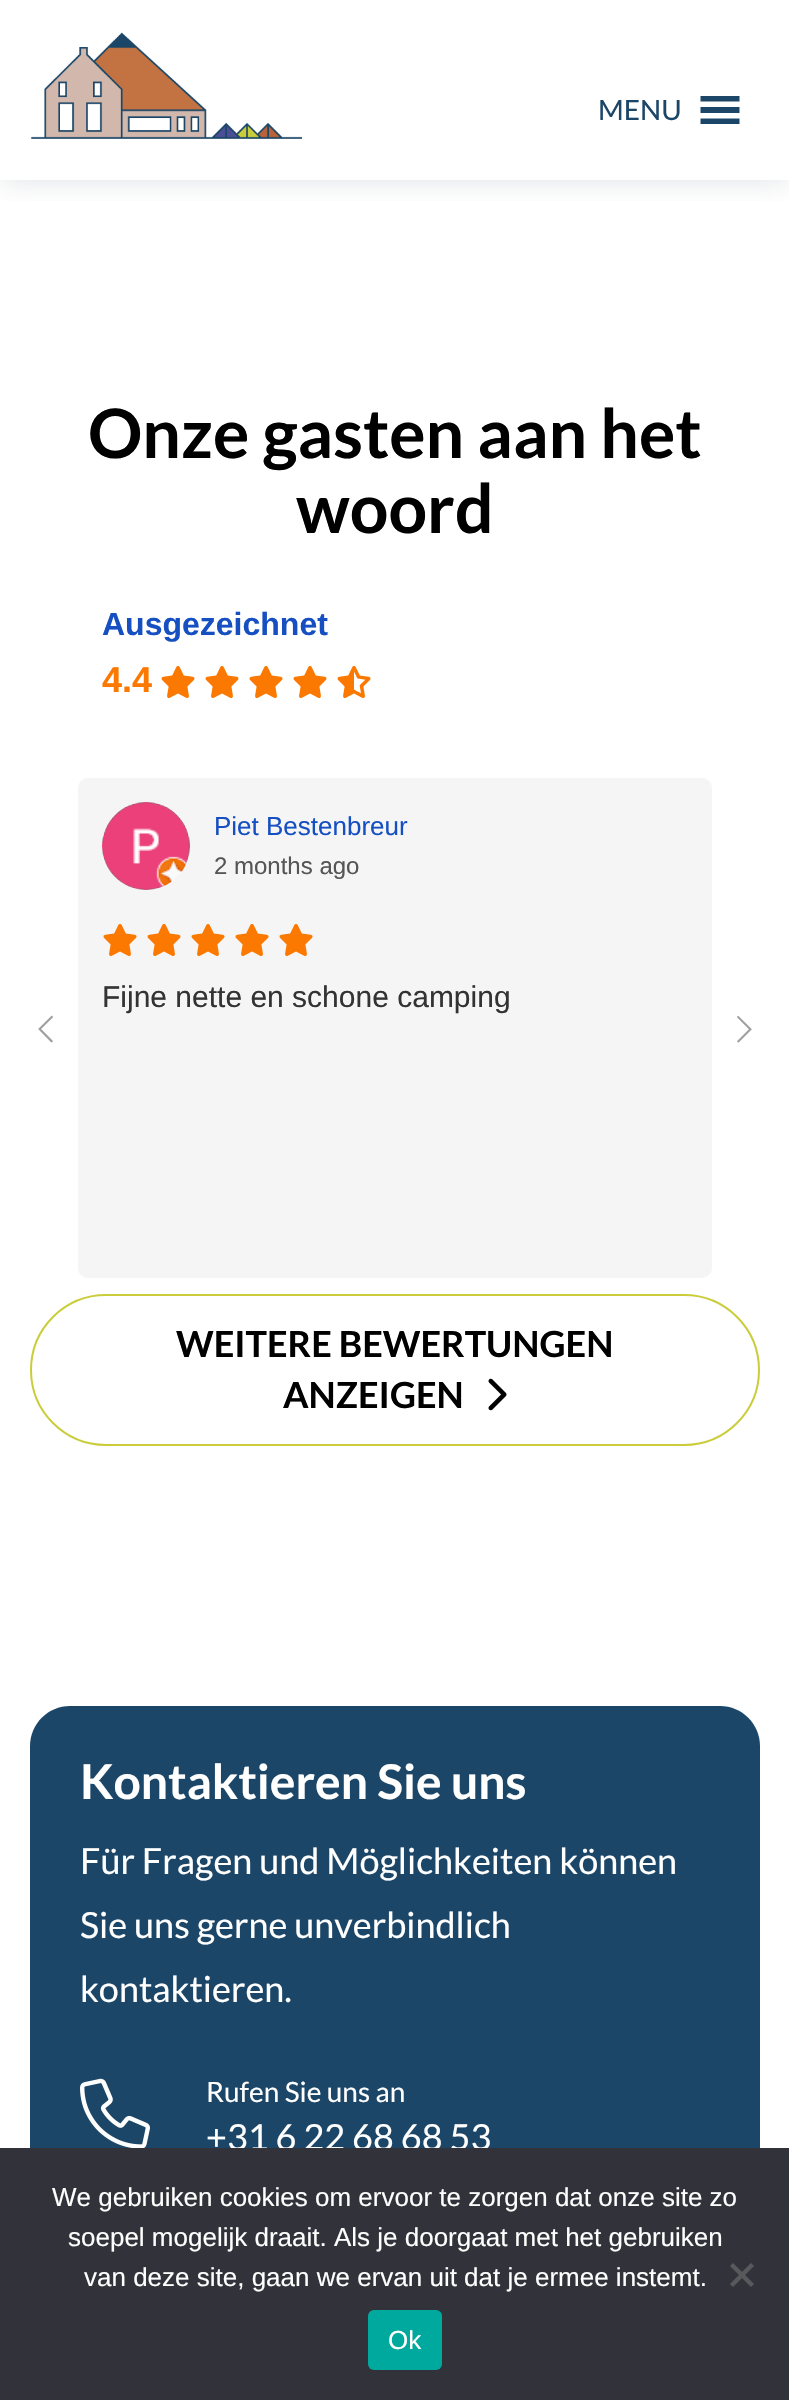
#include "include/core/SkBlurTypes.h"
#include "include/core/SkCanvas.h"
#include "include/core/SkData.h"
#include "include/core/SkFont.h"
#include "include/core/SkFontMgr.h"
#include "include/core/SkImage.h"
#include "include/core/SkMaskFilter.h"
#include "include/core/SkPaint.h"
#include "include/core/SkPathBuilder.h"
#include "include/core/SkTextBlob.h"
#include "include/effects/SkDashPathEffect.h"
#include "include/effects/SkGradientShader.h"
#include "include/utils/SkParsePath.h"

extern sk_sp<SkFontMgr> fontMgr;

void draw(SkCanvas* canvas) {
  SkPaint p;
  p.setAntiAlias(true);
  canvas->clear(SK_ColorWHITE);
  canvas->save();
  canvas->clipRect(SkRect::MakeLTRB(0, 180, 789, 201));
  p.setColor(SkColorSetARGB(77, 149, 157, 165));
  p.setMaskFilter(SkMaskFilter::MakeBlur(kNormal_SkBlurStyle, 14));
  canvas->drawRect(SkRect::MakeLTRB(0, 0, 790, 180), p);
  p.setMaskFilter(nullptr);
  canvas->restore();
  canvas->drawImageRect(SkImages::DeferredFromEncodedData(SkData::MakeFromFileName("images/1.png")), SkRect::MakeLTRB(31, 32, 302, 139), SkSamplingOptions());
  p.setColor(SkColorSetRGB(27, 70, 103));
  canvas->drawPath(SkPathBuilder().moveTo(700.5f, 124).lineTo(739.5f, 124).lineTo(739.5f, 118.5f).lineTo(700.5f, 118.5f).close().moveTo(700.5f, 96).lineTo(700.5f, 101.5f).lineTo(739.5f, 101.5f).lineTo(739.5f, 96).close().moveTo(700.5f, 113).lineTo(739.5f, 113).lineTo(739.5f, 107).lineTo(700.5f, 107).close().detach(), p);
  canvas->drawImageRect(SkImages::DeferredFromEncodedData(SkData::MakeFromFileName("images/2.png")), SkRect::MakeLTRB(161, 666, 195, 698), SkSamplingOptions());
  canvas->drawImageRect(SkImages::DeferredFromEncodedData(SkData::MakeFromFileName("images/2.png")), SkRect::MakeLTRB(205, 666, 239, 698), SkSamplingOptions());
  canvas->drawImageRect(SkImages::DeferredFromEncodedData(SkData::MakeFromFileName("images/3.png")), SkRect::MakeLTRB(249, 666, 283, 698), SkSamplingOptions());
  canvas->drawImageRect(SkImages::DeferredFromEncodedData(SkData::MakeFromFileName("images/2.png")), SkRect::MakeLTRB(293, 666, 327, 698), SkSamplingOptions());
  canvas->drawImageRect(SkImages::DeferredFromEncodedData(SkData::MakeFromFileName("images/4.png")), SkRect::MakeLTRB(337, 666, 371, 698), SkSamplingOptions());
  p.setColor(SkColorSetRGB(245, 245, 245));
  canvas->drawRoundRect(SkRect::MakeLTRB(78, 778, 712, 1278), 10, 10, p);
  canvas->drawImageRect(SkImages::DeferredFromEncodedData(SkData::MakeFromFileName("images/5.png")), SkRect::MakeLTRB(102, 802, 190, 890), SkSamplingOptions());
  canvas->drawImageRect(SkImages::DeferredFromEncodedData(SkData::MakeFromFileName("images/6.png")), SkRect::MakeLTRB(103, 924, 137, 956), SkSamplingOptions());
  canvas->drawImageRect(SkImages::DeferredFromEncodedData(SkData::MakeFromFileName("images/6.png")), SkRect::MakeLTRB(147, 924, 181, 956), SkSamplingOptions());
  canvas->drawImageRect(SkImages::DeferredFromEncodedData(SkData::MakeFromFileName("images/6.png")), SkRect::MakeLTRB(191, 924, 225, 956), SkSamplingOptions());
  canvas->drawImageRect(SkImages::DeferredFromEncodedData(SkData::MakeFromFileName("images/7.png")), SkRect::MakeLTRB(235, 924, 269, 956), SkSamplingOptions());
  canvas->drawImageRect(SkImages::DeferredFromEncodedData(SkData::MakeFromFileName("images/6.png")), SkRect::MakeLTRB(279, 924, 313, 956), SkSamplingOptions());
  canvas->drawImageRect(SkImages::DeferredFromEncodedData(SkData::MakeFromFileName("images/8.png")), SkRect::MakeLTRB(38, 1015, 53, 1043), SkSamplingOptions());
  canvas->drawImageRect(SkImages::DeferredFromEncodedData(SkData::MakeFromFileName("images/9.png")), SkRect::MakeLTRB(737, 1015, 752, 1043), SkSamplingOptions());
  p.setStyle(SkPaint::kStroke_Style);
  p.setStrokeWidth(2);
  p.setColor(SkColorSetRGB(202, 205, 57));
  canvas->drawRoundRect(SkRect::MakeLTRB(31, 1295, 759, 1445), 75, 75, p);
  canvas->drawImageRect(SkImages::DeferredFromEncodedData(SkData::MakeFromFileName("images/10.png")), SkRect::MakeLTRB(488, 1378, 507, 1411), SkSamplingOptions());
  p.setStyle(SkPaint::kFill_Style);
  p.setColor(SkColorSetRGB(27, 70, 103));
  canvas->drawPath(SkPathBuilder().moveTo(70, 1706).lineTo(720, 1706).cubicTo(742, 1706, 760, 1724, 760, 1746).lineTo(760, 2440).lineTo(30, 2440).lineTo(30, 1746).cubicTo(30, 1724, 48, 1706, 70, 1706).close().detach(), p);
  canvas->drawImageRect(SkImages::DeferredFromEncodedData(SkData::MakeFromFileName("images/11.png")), SkRect::MakeLTRB(80, 2078, 150, 2148), SkSamplingOptions());
  SkFont font1(fontMgr->matchFamilyStyle("Lato", SkFontStyle::Normal()), 28);
  font1.setSubpixel(true);
  canvas->drawString("MENU", 598, 120, font1, p);
  SkFont font2(fontMgr->matchFamilyStyle("Lato", SkFontStyle::Bold()), 68);
  font2.setSubpixel(true);
  p.setColor(SK_ColorBLACK);
  canvas->drawString("Onze gasten aan het", 88, 458, font2, p);
  canvas->drawString("woord", 296, 533, font2, p);
  SkFont font3(fontMgr->matchFamilyStyle("Liberation Sans", SkFontStyle::Bold()), 32);
  font3.setSubpixel(true);
  p.setColor(SkColorSetRGB(21, 79, 193));
  canvas->drawString("Ausgezeichnet", 102, 635, font3, p);
  SkFont font4(fontMgr->matchFamilyStyle("Liberation Sans", SkFontStyle::Bold()), 36);
  font4.setSubpixel(true);
  p.setColor(SkColorSetRGB(251, 121, 0));
  canvas->drawString("4.4", 102, 692, font4, p);
  SkFont font5(fontMgr->matchFamilyStyle("Liberation Sans", SkFontStyle::Normal()), 26);
  font5.setSubpixel(true);
  p.setColor(SkColorSetRGB(21, 79, 193));
  canvas->drawString("Piet Bestenbreur", 214, 835, font5, p);
  SkFont font6(fontMgr->matchFamilyStyle("Liberation Sans", SkFontStyle::Normal()), 24);
  font6.setSubpixel(true);
  p.setColor(SkColorSetRGB(85, 85, 85));
  canvas->drawString("2 months ago", 214, 874, font6, p);
  SkFont font7(fontMgr->matchFamilyStyle("Liberation Sans", SkFontStyle::Normal()), 30);
  font7.setSubpixel(true);
  p.setColor(SkColorSetRGB(51, 51, 51));
  canvas->drawString("Fijne nette en schone camping", 102, 1007, font7, p);
  SkFont font8(fontMgr->matchFamilyStyle("Lato", SkFontStyle::Bold()), 36);
  font8.setSubpixel(true);
  p.setColor(SK_ColorBLACK);
  canvas->drawString("WEITERE BEWERTUNGEN", 176, 1357, font8, p);
  canvas->drawString("ANZEIGEN", 283, 1408, font8, p);
  SkFont font9(fontMgr->matchFamilyStyle("Lato", SkFontStyle::Bold()), 48);
  font9.setSubpixel(true);
  p.setColor(SK_ColorWHITE);
  canvas->drawString("Kontaktieren Sie uns", 80, 1799, font9, p);
  SkFont font10(fontMgr->matchFamilyStyle("Lato", SkFontStyle::Normal()), 36);
  font10.setSubpixel(true);
  canvas->drawString("Für Fragen und Möglichkeiten können", 80, 1874, font10, p);
  canvas->drawString("Sie uns gerne unverbindlich", 80, 1938, font10, p);
  canvas->drawString("kontaktieren.", 80, 2002, font10, p);
  canvas->drawString("Rufen Sie uns an", 206, 2102, font1, p);
  canvas->drawString("+31 6 22 68 68 53", 206, 2150, font10, p);
  p.setColor(SkColorSetRGB(50, 50, 58));
  canvas->drawRect(SkRect::MakeLTRB(0, 2148, 789, 2400), p);
  p.setColor(SK_ColorWHITE);
  canvas->drawString("We gebruiken cookies om ervoor te zorgen dat onze site zo", 52, 2206, font5, p);
  canvas->drawString("soepel mogelijk draait. Als je doorgaat met het gebruiken", 68, 2246, font5, p);
  canvas->drawString("van deze site, gaan we ervan uit dat je ermee instemt.", 84, 2286, font5, p);
  p.setColor(SkColorSetRGB(89, 89, 93));
  canvas->drawPath(SkPathBuilder().moveTo(751, 2263).lineTo(754, 2266).lineTo(733, 2287).lineTo(730, 2284).close().detach(), p);
  canvas->drawPath(SkPathBuilder().moveTo(730, 2266).lineTo(733, 2263).lineTo(754, 2284).lineTo(751, 2287).close().detach(), p);
  p.setColor(SkColorSetRGB(0, 169, 157));
  canvas->drawRoundRect(SkRect::MakeLTRB(368, 2310, 442, 2370), 6, 6, p);
  p.setColor(SK_ColorWHITE);
  canvas->drawString("Ok", 388, 2349, font5, p);
}
